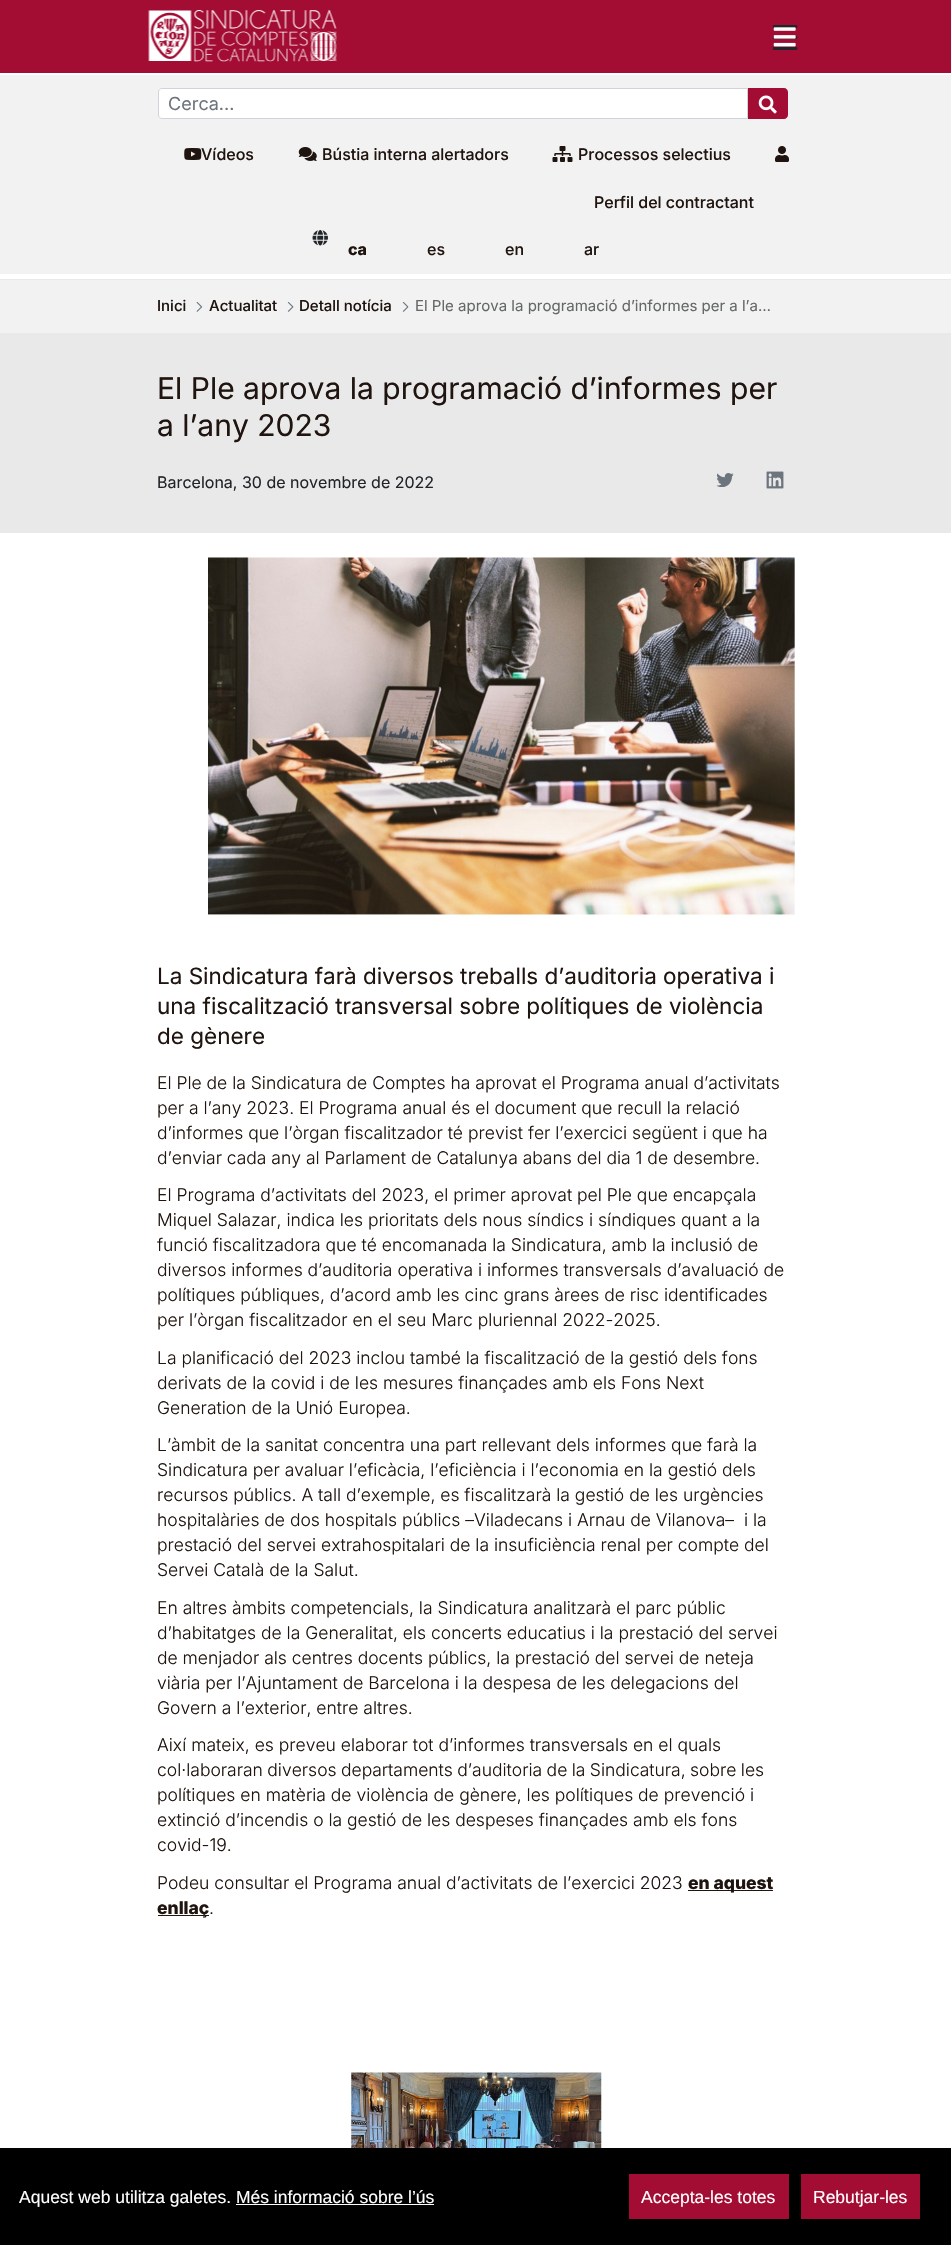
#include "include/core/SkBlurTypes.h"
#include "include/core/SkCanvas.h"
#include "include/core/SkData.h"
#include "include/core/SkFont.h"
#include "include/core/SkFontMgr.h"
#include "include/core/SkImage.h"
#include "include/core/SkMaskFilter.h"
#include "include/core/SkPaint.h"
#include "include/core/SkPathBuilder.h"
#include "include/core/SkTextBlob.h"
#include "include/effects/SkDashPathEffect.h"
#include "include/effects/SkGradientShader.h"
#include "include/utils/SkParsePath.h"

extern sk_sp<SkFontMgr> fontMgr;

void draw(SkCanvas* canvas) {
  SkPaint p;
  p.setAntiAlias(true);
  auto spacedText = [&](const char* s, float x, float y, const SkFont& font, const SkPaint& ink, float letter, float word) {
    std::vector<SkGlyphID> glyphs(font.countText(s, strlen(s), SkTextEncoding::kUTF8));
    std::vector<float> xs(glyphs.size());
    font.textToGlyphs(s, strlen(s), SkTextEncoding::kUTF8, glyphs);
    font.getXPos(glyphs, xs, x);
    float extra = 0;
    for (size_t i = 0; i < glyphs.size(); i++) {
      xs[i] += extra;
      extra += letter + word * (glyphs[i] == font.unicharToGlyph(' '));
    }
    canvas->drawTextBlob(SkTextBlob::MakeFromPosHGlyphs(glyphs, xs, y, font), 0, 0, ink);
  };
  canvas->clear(SK_ColorWHITE);
  p.setColor(SkColorSetRGB(163, 13, 52));
  canvas->drawRect(SkRect::MakeLTRB(0, 0, 951, 73), p);
  canvas->drawImageRect(SkImages::DeferredFromEncodedData(SkData::MakeFromFileName("images/1.png")), SkRect::MakeLTRB(148, 10, 337, 62), SkSamplingOptions());
  canvas->drawImageRect(SkImages::DeferredFromEncodedData(SkData::MakeFromFileName("images/2.png")), SkRect::MakeLTRB(773, 25, 798, 50), SkSamplingOptions());
  canvas->drawImageRect(SkImages::DeferredFromEncodedData(SkData::MakeFromFileName("images/3.png")), SkRect::MakeLTRB(773, 27, 796, 47), SkSamplingOptions());
  p.setColor(SkColorSetRGB(242, 242, 242));
  canvas->drawRect(SkRect::MakeLTRB(0, 75, 951, 274), p);
  p.setColor(SK_ColorWHITE);
  canvas->drawPath(SkPathBuilder().moveTo(162, 88.5f).lineTo(747.5f, 88.5f).lineTo(747.5f, 118.5f).lineTo(162, 118.5f).cubicTo(160, 118.5f, 158.5f, 117, 158.5f, 115).lineTo(158.5f, 92).cubicTo(158.5f, 90, 160, 88.5f, 162, 88.5f).close().detach(), p);
  p.setStyle(SkPaint::kStroke_Style);
  p.setStrokeWidth(1);
  p.setColor(SkColorSetRGB(206, 212, 218));
  canvas->drawPath(SkPathBuilder().moveTo(162, 88.5f).lineTo(747.5f, 88.5f).lineTo(747.5f, 118.5f).lineTo(162, 118.5f).cubicTo(160, 118.5f, 158.5f, 117, 158.5f, 115).lineTo(158.5f, 92).cubicTo(158.5f, 90, 160, 88.5f, 162, 88.5f).close().detach(), p);
  p.setStyle(SkPaint::kFill_Style);
  p.setColor(SkColorSetRGB(163, 13, 52));
  canvas->drawPath(SkPathBuilder().moveTo(748, 88).lineTo(784, 88).cubicTo(786, 88, 788, 90, 788, 92).lineTo(788, 115).cubicTo(788, 117, 786, 119, 784, 119).lineTo(748, 119).close().detach(), p);
  canvas->drawImageRect(SkImages::DeferredFromEncodedData(SkData::MakeFromFileName("images/4.png")), SkRect::MakeLTRB(758, 95, 777, 114), SkSamplingOptions());
  canvas->drawImageRect(SkImages::DeferredFromEncodedData(SkData::MakeFromFileName("images/5.png")), SkRect::MakeLTRB(184, 148, 202, 160), SkSamplingOptions());
  canvas->drawImageRect(SkImages::DeferredFromEncodedData(SkData::MakeFromFileName("images/6.png")), SkRect::MakeLTRB(298, 147, 317, 161), SkSamplingOptions());
  canvas->drawImageRect(SkImages::DeferredFromEncodedData(SkData::MakeFromFileName("images/7.png")), SkRect::MakeLTRB(552, 146, 573, 162), SkSamplingOptions());
  canvas->drawImageRect(SkImages::DeferredFromEncodedData(SkData::MakeFromFileName("images/8.png")), SkRect::MakeLTRB(775, 146, 789, 162), SkSamplingOptions());
  canvas->drawImageRect(SkImages::DeferredFromEncodedData(SkData::MakeFromFileName("images/9.png")), SkRect::MakeLTRB(312, 230, 328, 246), SkSamplingOptions());
  p.setColor(SkColorSetRGB(242, 242, 242));
  canvas->drawRect(SkRect::MakeLTRB(0, 280, 951, 333), p);
  p.setColor(SkColorSetRGB(233, 233, 233));
  canvas->drawRect(SkRect::MakeLTRB(0, 279, 951, 280), p);
  canvas->drawImageRect(SkImages::DeferredFromEncodedData(SkData::MakeFromFileName("images/10.png")), SkRect::MakeLTRB(196, 302, 203, 312), SkSamplingOptions());
  canvas->drawImageRect(SkImages::DeferredFromEncodedData(SkData::MakeFromFileName("images/11.png")), SkRect::MakeLTRB(287, 302, 294, 312), SkSamplingOptions());
  canvas->drawImageRect(SkImages::DeferredFromEncodedData(SkData::MakeFromFileName("images/11.png")), SkRect::MakeLTRB(402, 302, 409, 312), SkSamplingOptions());
  canvas->drawRect(SkRect::MakeLTRB(0, 333, 951, 533), p);
  canvas->drawImageRect(SkImages::DeferredFromEncodedData(SkData::MakeFromFileName("images/12.png")), SkRect::MakeLTRB(716, 473, 734, 487), SkSamplingOptions());
  canvas->drawImageRect(SkImages::DeferredFromEncodedData(SkData::MakeFromFileName("images/13.png")), SkRect::MakeLTRB(766, 471, 784, 489), SkSamplingOptions());
  canvas->drawImageRect(SkImages::DeferredFromEncodedData(SkData::MakeFromFileName("images/14.png")), SkRect::MakeLTRB(207, 557, 795, 918), SkSamplingOptions());
  p.setColor(SkColorSetRGB(31, 20, 15));
  canvas->drawRect(SkRect::MakeLTRB(688, 1890, 773, 1891), p);
  canvas->drawRect(SkRect::MakeLTRB(158, 1915, 209, 1916), p);
  canvas->drawImageRect(SkImages::DeferredFromEncodedData(SkData::MakeFromFileName("images/15.png")), SkRect::MakeLTRB(351, 2072, 602, 2148), SkSamplingOptions());
  p.setColor(SK_ColorBLACK);
  canvas->drawRect(SkRect::MakeLTRB(0, 2148, 951, 2245), p);
  p.setColor(SK_ColorWHITE);
  canvas->drawRect(SkRect::MakeLTRB(236, 2204, 434, 2205), p);
  p.setColor(SkColorSetRGB(163, 13, 52));
  canvas->drawRect(SkRect::MakeLTRB(629, 2174, 789, 2219), p);
  canvas->drawRect(SkRect::MakeLTRB(801, 2174, 920, 2219), p);
  SkFont font1(fontMgr->matchFamilyStyle("Inter", SkFontStyle::Normal()), 18);
  font1.setSubpixel(true);
  p.setColor(SkColorSetRGB(108, 117, 125));
  canvas->drawString("Cerca...", 168, 110, font1, p);
  SkFont font2(fontMgr->matchFamilyStyle("Inter", SkFontStyle(500, SkFontStyle::kNormal_Width, SkFontStyle::kUpright_Slant)), 16);
  font2.setSubpixel(true);
  p.setColor(SkColorSetRGB(31, 20, 15));
  canvas->drawString("Vídeos", 201, 160, font2, p);
  canvas->drawString("Bústia interna alertadors", 322, 160, font2, p);
  canvas->drawString("Processos selectius", 578, 160, font2, p);
  canvas->drawString("Perfil del contractant", 594, 208, font2, p);
  SkFont font3(fontMgr->matchFamilyStyle("Inter", SkFontStyle(800, SkFontStyle::kNormal_Width, SkFontStyle::kUpright_Slant)), 16);
  font3.setSubpixel(true);
  canvas->drawString("ca", 348, 255, font3, p);
  canvas->drawString("es", 427, 255, font2, p);
  canvas->drawString("en", 505, 255, font2, p);
  canvas->drawString("ar", 584, 255, font2, p);
  SkFont font4(fontMgr->matchFamilyStyle("Inter", SkFontStyle(500, SkFontStyle::kNormal_Width, SkFontStyle::kUpright_Slant)), 15);
  font4.setSubpixel(true);
  canvas->drawString("Inici", 157, 311, font4, p);
  canvas->drawString("Actualitat", 209, 311, font4, p);
  canvas->drawString("Detall notícia", 299, 311, font4, p);
  SkFont font5(fontMgr->matchFamilyStyle("Inter", SkFontStyle::Normal()), 15);
  font5.setSubpixel(true);
  p.setColor(SkColorSetRGB(100, 105, 102));
  canvas->drawString("El Ple aprova la programació d’informes per a l’a…", 415, 311, font5, p);
  SkFont font6(fontMgr->matchFamilyStyle("Inter", SkFontStyle::Normal()), 30);
  font6.setSubpixel(true);
  p.setColor(SkColorSetRGB(31, 20, 15));
  canvas->drawString("El Ple aprova la programació d’informes per", 157, 399, font6, p);
  canvas->drawString("a l’any 2023", 157, 436, font6, p);
  SkFont font7(fontMgr->matchFamilyStyle("Inter", SkFontStyle::Normal()), 16);
  font7.setSubpixel(true);
  p.setColor(SkColorSetRGB(33, 37, 41));
  canvas->drawString("Barcelona, 30 de novembre de 2022", 157, 488, font7, p);
  SkFont font8(fontMgr->matchFamilyStyle("Inter", SkFontStyle::Normal()), 22.5f);
  font8.setSubpixel(true);
  p.setColor(SkColorSetRGB(31, 20, 15));
  canvas->drawString("La Sindicatura farà diversos treballs d’auditoria operativa i", 157, 984, font8, p);
  canvas->drawString("una fiscalització transversal sobre polítiques de violència", 157, 1014, font8, p);
  canvas->drawString("de gènere", 157, 1044, font8, p);
  SkFont font9(fontMgr->matchFamilyStyle("Inter", SkFontStyle(300, SkFontStyle::kNormal_Width, SkFontStyle::kUpright_Slant)), 17.5f);
  font9.setSubpixel(true);
  canvas->drawString("El Ple de la Sindicatura de Comptes ha aprovat el Programa anual d’activitats", 157, 1089, font9, p);
  canvas->drawString("per a l’any 2023. El Programa anual és el document que recull la relació", 157, 1114, font9, p);
  canvas->drawString("d’informes que l’òrgan fiscalitzador té previst fer l’exercici següent i que ha", 157, 1139, font9, p);
  canvas->drawString("d’enviar cada any al Parlament de Catalunya abans del dia 1 de desembre.", 157, 1164, font9, p);
  canvas->drawString("El Programa d’activitats del 2023, el primer aprovat pel Ple que encapçala", 157, 1201, font9, p);
  canvas->drawString("Miquel Salazar, indica les prioritats dels nous síndics i síndiques quant a la", 157, 1226, font9, p);
  canvas->drawString("funció fiscalitzadora que té encomanada la Sindicatura, amb la inclusió de", 157, 1251, font9, p);
  canvas->drawString("diversos informes d’auditoria operativa i informes transversals d’avaluació de", 157, 1276, font9, p);
  canvas->drawString("polítiques públiques, d’acord amb les cinc grans àrees de risc identificades", 157, 1301, font9, p);
  canvas->drawString("per l’òrgan fiscalitzador en el seu Marc pluriennal 2022-2025.", 157, 1326, font9, p);
  canvas->drawString("La planificació del 2023 inclou també la fiscalització de la gestió dels fons", 157, 1364, font9, p);
  canvas->drawString("derivats de la covid i de les mesures finançades amb els Fons Next", 157, 1389, font9, p);
  canvas->drawString("Generation de la Unió Europea.", 157, 1414, font9, p);
  canvas->drawString("L’àmbit de la sanitat concentra una part rellevant dels informes que farà la", 157, 1451, font9, p);
  canvas->drawString("Sindicatura per avaluar l’eficàcia, l’eficiència i l’economia en la gestió dels", 157, 1476, font9, p);
  canvas->drawString("recursos públics. A tall d’exemple, es fiscalitzarà la gestió de les urgències", 157, 1501, font9, p);
  canvas->drawString("hospitalàries de dos hospitals públics –Viladecans i Arnau de Vilanova–  i la", 157, 1526, font9, p);
  canvas->drawString("prestació del servei extrahospitalari de la insuficiència renal per compte del", 157, 1551, font9, p);
  canvas->drawString("Servei Català de la Salut.", 157, 1576, font9, p);
  canvas->drawString("En altres àmbits competencials, la Sindicatura analitzarà el parc públic", 157, 1614, font9, p);
  canvas->drawString("d’habitatges de la Generalitat, els concerts educatius i la prestació del servei", 157, 1639, font9, p);
  canvas->drawString("de menjador als centres docents públics, la prestació del servei de neteja", 157, 1664, font9, p);
  canvas->drawString("viària per l’Ajuntament de Barcelona i la despesa de les delegacions del", 157, 1689, font9, p);
  canvas->drawString("Govern a l’exterior, entre altres.", 157, 1714, font9, p);
  canvas->drawString("Així mateix, es preveu elaborar tot d’informes transversals en el quals", 157, 1751, font9, p);
  spacedText("col·laboraran diversos departaments d’auditoria de la Sindicatura, sobre les", 157, 1776, font9, p, 0, -0.5f);
  canvas->drawString("polítiques en matèria de violència de gènere, les polítiques de prevenció i", 157, 1801, font9, p);
  canvas->drawString("extinció d’incendis o la gestió de les despeses finançades amb els fons", 157, 1826, font9, p);
  canvas->drawString("covid-19.", 157, 1851, font9, p);
  canvas->drawString("Podeu consultar el Programa anual d’activitats de l’exercici 2023", 157, 1889, font9, p);
  SkFont font10(fontMgr->matchFamilyStyle("Inter", SkFontStyle(800, SkFontStyle::kNormal_Width, SkFontStyle::kUpright_Slant)), 17.5f);
  font10.setSubpixel(true);
  canvas->drawString("en aquest", 688, 1889, font10, p);
  canvas->drawString("enllaç", 157, 1914, font10, p);
  canvas->drawString(".", 209, 1914, font9, p);
  SkFont font11(fontMgr->matchFamilyStyle("Liberation Sans", SkFontStyle::Normal()), 17.5f);
  font11.setSubpixel(true);
  p.setColor(SK_ColorWHITE);
  canvas->drawString("Aquest web utilitza galetes. Més informació sobre l’ús", 19, 2203, font11, p);
  canvas->drawString("Accepta-les totes", 641, 2203, font11, p);
  canvas->drawString("Rebutjar-les", 813, 2203, font11, p);
}
